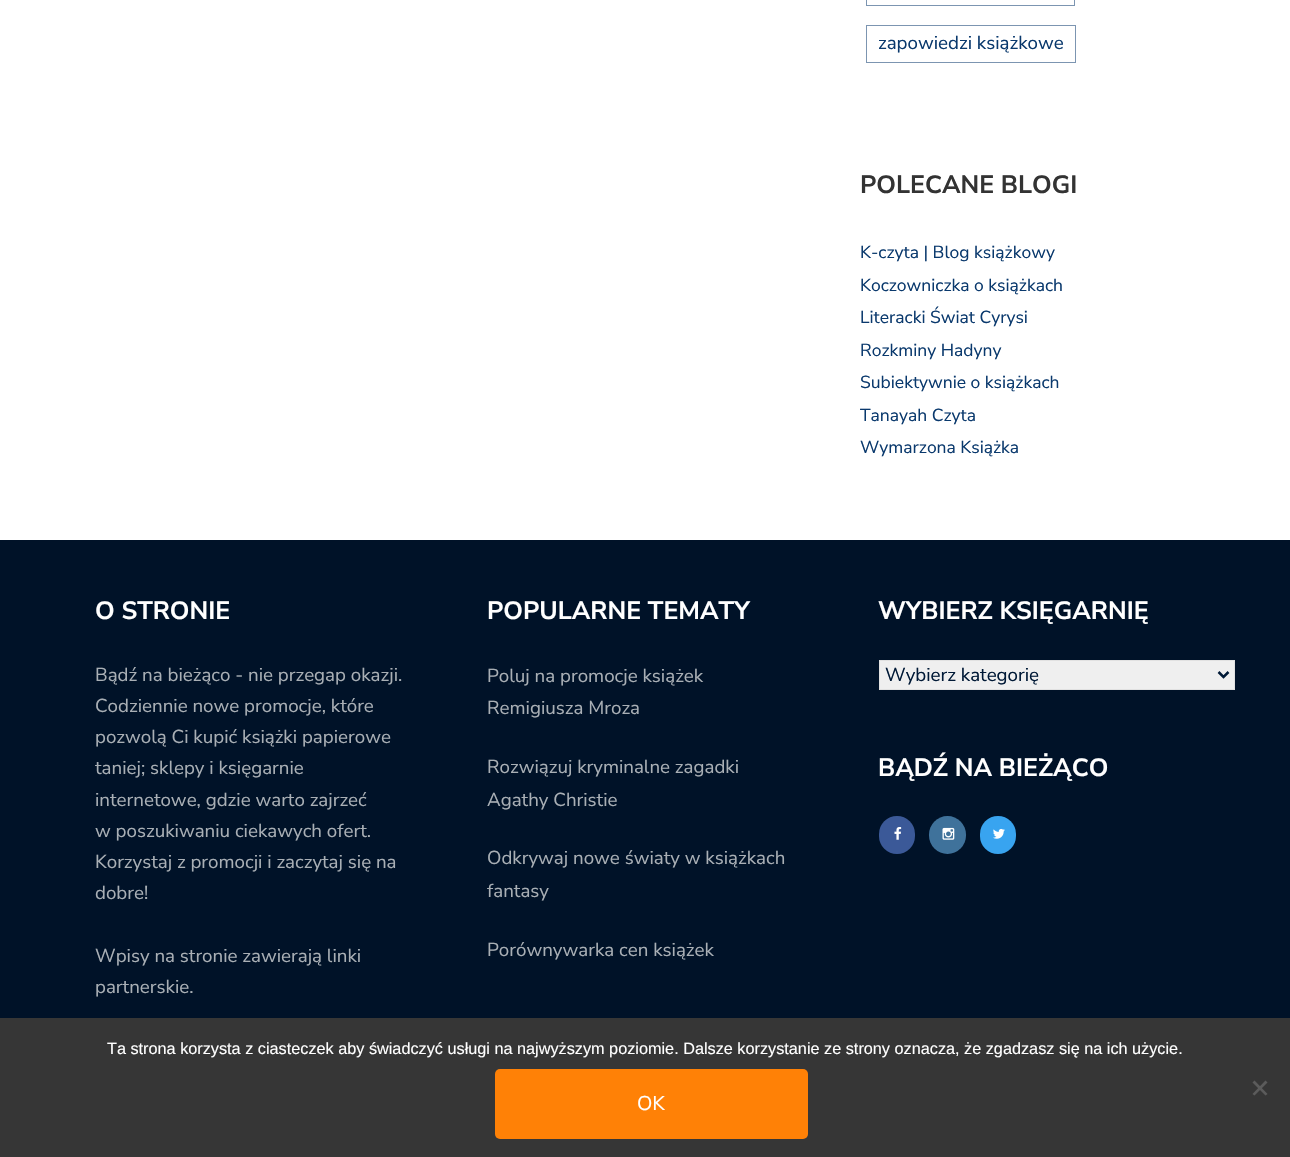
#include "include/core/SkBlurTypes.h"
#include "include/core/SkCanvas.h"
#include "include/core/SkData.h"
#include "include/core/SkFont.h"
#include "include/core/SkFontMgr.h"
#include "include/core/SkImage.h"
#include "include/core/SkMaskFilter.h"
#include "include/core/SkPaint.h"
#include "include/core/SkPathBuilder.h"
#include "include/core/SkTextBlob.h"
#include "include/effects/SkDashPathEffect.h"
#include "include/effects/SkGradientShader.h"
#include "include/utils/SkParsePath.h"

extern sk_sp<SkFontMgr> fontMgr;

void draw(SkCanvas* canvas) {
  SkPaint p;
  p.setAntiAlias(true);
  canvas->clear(SK_ColorWHITE);
  p.setStyle(SkPaint::kStroke_Style);
  p.setStrokeWidth(1);
  p.setColor(SkColorSetRGB(124, 149, 177));
  canvas->drawRect(SkRect::MakeLTRB(866.5f, -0.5f, 1074.5f, 5.5f), p);
  canvas->drawRect(SkRect::MakeLTRB(866.5f, 25.5f, 1075.5f, 62.5f), p);
  p.setStyle(SkPaint::kFill_Style);
  p.setColor(SkColorSetRGB(0, 18, 40));
  canvas->drawRect(SkRect::MakeLTRB(0, 540, 1290, 1018), p);
  p.setColor(SkColorSetRGB(239, 239, 239));
  canvas->drawRect(SkRect::MakeLTRB(879.5f, 660.5f, 1234.5f, 689.5f), p);
  p.setStyle(SkPaint::kStroke_Style);
  p.setColor(SkColorSetRGB(225, 225, 225));
  canvas->drawRect(SkRect::MakeLTRB(879.5f, 660.5f, 1234.5f, 689.5f), p);
  p.setStrokeWidth(2.5f);
  p.setColor(SkColorSetRGB(0, 25, 54));
  canvas->drawPath(SkPathBuilder().moveTo(1218.5f, 672).lineTo(1223.5f, 677).lineTo(1228.5f, 672).detach(), p);
  p.setStyle(SkPaint::kFill_Style);
  p.setColor(SkColorSetRGB(59, 89, 152));
  canvas->drawRoundRect(SkRect::MakeLTRB(879, 816, 915, 854), 18, 18, p);
  canvas->drawImageRect(SkImages::DeferredFromEncodedData(SkData::MakeFromFileName("images/1.png")), SkRect::MakeLTRB(894, 827, 902, 840), SkSamplingOptions());
  p.setColor(SkColorSetRGB(63, 114, 155));
  canvas->drawRoundRect(SkRect::MakeLTRB(929, 816, 966, 854), 18.5f, 18.5f, p);
  canvas->drawImageRect(SkImages::DeferredFromEncodedData(SkData::MakeFromFileName("images/2.png")), SkRect::MakeLTRB(942, 827, 955, 840), SkSamplingOptions());
  p.setColor(SkColorSetRGB(56, 164, 240));
  canvas->drawRoundRect(SkRect::MakeLTRB(980, 816, 1016, 854), 18, 18, p);
  canvas->drawImageRect(SkImages::DeferredFromEncodedData(SkData::MakeFromFileName("images/3.png")), SkRect::MakeLTRB(993, 828, 1005, 839), SkSamplingOptions());
  p.setColor(SkColorSetRGB(54, 54, 54));
  canvas->drawRect(SkRect::MakeLTRB(0, 1018, 1290, 1157), p);
  p.setColor(SkColorSetRGB(91, 91, 91));
  canvas->drawPath(SkPathBuilder().moveTo(1265.5f, 1080.5f).lineTo(1267.5f, 1082.5f).lineTo(1254.5f, 1095.5f).lineTo(1252.5f, 1094).close().detach(), p);
  canvas->drawPath(SkPathBuilder().moveTo(1252.5f, 1082.5f).lineTo(1254.5f, 1080.5f).lineTo(1267.5f, 1094).lineTo(1265.5f, 1095.5f).close().detach(), p);
  p.setColor(SkColorSetRGB(255, 129, 6));
  canvas->drawRoundRect(SkRect::MakeLTRB(495, 1069, 808, 1139), 5, 5, p);
  SkFont font1(fontMgr->matchFamilyStyle("Nunito Sans", SkFontStyle::Normal()), 18.75f);
  font1.setSubpixel(true);
  p.setColor(SkColorSetRGB(10, 57, 109));
  canvas->drawString("zapowiedzi książkowe", 878, 49, font1, p);
  SkFont font2(fontMgr->matchFamilyStyle("Nunito Sans", SkFontStyle::Bold()), 25);
  font2.setSubpixel(true);
  p.setColor(SkColorSetRGB(51, 51, 51));
  canvas->drawString("POLECANE BLOGI", 860, 193, font2, p);
  SkFont font3(fontMgr->matchFamilyStyle("Nunito Sans", SkFontStyle::Normal()), 17.5f);
  font3.setSubpixel(true);
  p.setColor(SkColorSetRGB(10, 57, 109));
  canvas->drawString("K-czyta | Blog książkowy", 860, 258, font3, p);
  canvas->drawString("Koczowniczka o książkach", 860, 291, font3, p);
  canvas->drawString("Literacki Świat Cyrysi", 860, 323, font3, p);
  canvas->drawString("Rozkminy Hadyny", 860, 356, font3, p);
  canvas->drawString("Subiektywnie o książkach", 860, 388, font3, p);
  canvas->drawString("Tanayah Czyta", 860, 421, font3, p);
  canvas->drawString("Wymarzona Książka", 860, 453, font3, p);
  p.setColor(SK_ColorWHITE);
  canvas->drawString("O STRONIE", 95, 619, font2, p);
  p.setColor(SkColorSetRGB(169, 175, 181));
  canvas->drawString("Bądź na bieżąco - nie przegap okazji.", 95, 681, font1, p);
  canvas->drawString("Codziennie nowe promocje, które", 95, 712, font1, p);
  canvas->drawString("pozwolą Ci kupić książki papierowe", 95, 743, font1, p);
  canvas->drawString("taniej; sklepy i księgarnie", 95, 774, font1, p);
  canvas->drawString("internetowe, gdzie warto zajrzeć", 95, 806, font1, p);
  canvas->drawString("w poszukiwaniu ciekawych ofert.", 95, 837, font1, p);
  canvas->drawString("Korzystaj z promocji i zaczytaj się na", 95, 868, font1, p);
  canvas->drawString("dobre!", 95, 899, font1, p);
  canvas->drawString("Wpisy na stronie zawierają linki", 95, 962, font1, p);
  canvas->drawString("partnerskie.", 95, 993, font1, p);
  p.setColor(SK_ColorWHITE);
  canvas->drawString("POPULARNE TEMATY", 487, 619, font2, p);
  p.setColor(SkColorSetRGB(169, 175, 181));
  canvas->drawString("Poluj na promocje książek", 487, 682, font1, p);
  canvas->drawString("Remigiusza Mroza", 487, 714, font1, p);
  canvas->drawString("Rozwiązuj kryminalne zagadki", 487, 773, font1, p);
  canvas->drawString("Agathy Christie", 487, 806, font1, p);
  canvas->drawString("Odkrywaj nowe światy w książkach", 487, 864, font1, p);
  canvas->drawString("fantasy", 487, 897, font1, p);
  canvas->drawString("Porównywarka cen książek", 487, 956, font1, p);
  p.setColor(SK_ColorWHITE);
  canvas->drawString("WYBIERZ KSIĘGARNIĘ", 878, 619, font2, p);
  p.setColor(SkColorSetRGB(0, 25, 54));
  canvas->drawString("Wybierz kategorię", 885, 681, font1, p);
  p.setColor(SK_ColorWHITE);
  canvas->drawString("BĄDŹ NA BIEŻĄCO", 878, 776, font2, p);
  SkFont font4(fontMgr->matchFamilyStyle("Liberation Sans", SkFontStyle::Normal()), 16.25f);
  font4.setSubpixel(true);
  canvas->drawString("Ta strona korzysta z ciasteczek aby świadczyć usługi na najwyższym poziomie. Dalsze korzystanie ze strony oznacza, że zgadzasz się na ich użycie.", 107, 1054, font4, p);
  SkFont font5(fontMgr->matchFamilyStyle("Nunito Sans", SkFontStyle::Normal()), 20);
  font5.setSubpixel(true);
  canvas->drawString("OK", 637, 1110, font5, p);
}
